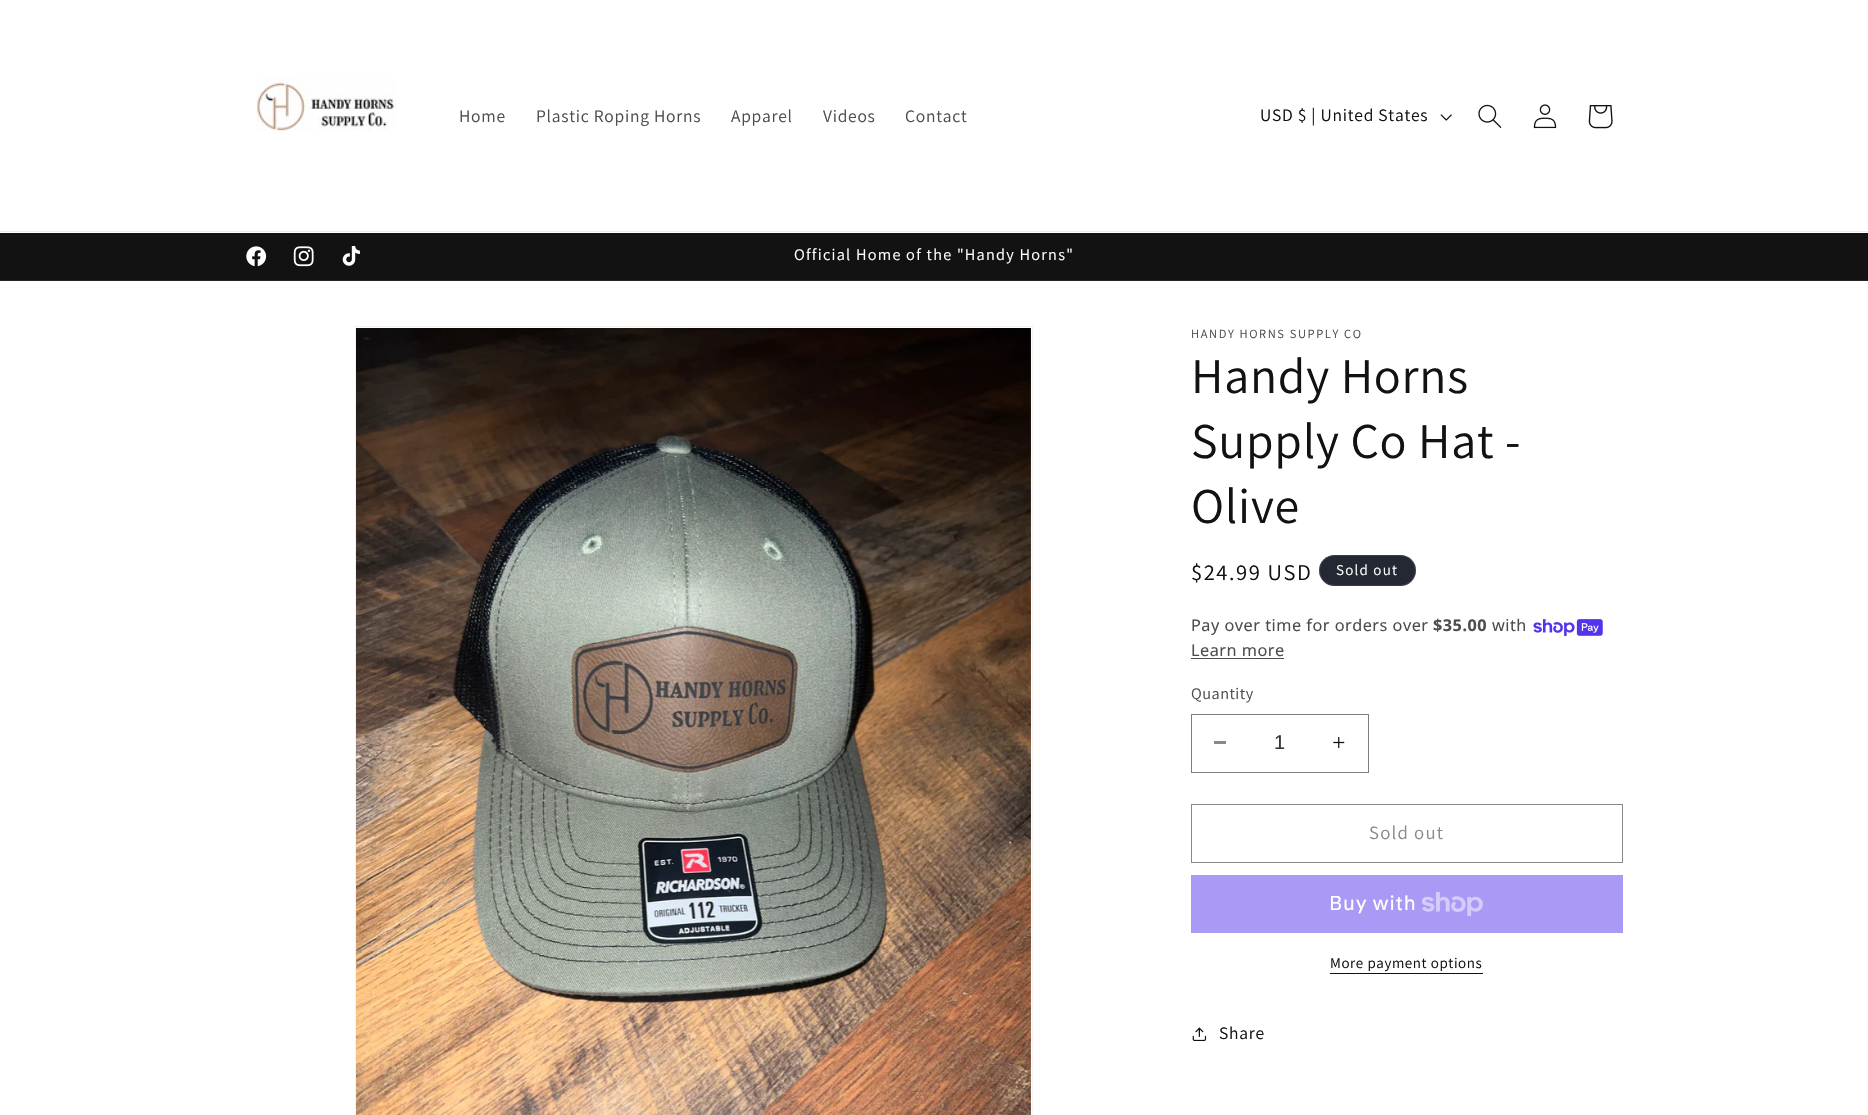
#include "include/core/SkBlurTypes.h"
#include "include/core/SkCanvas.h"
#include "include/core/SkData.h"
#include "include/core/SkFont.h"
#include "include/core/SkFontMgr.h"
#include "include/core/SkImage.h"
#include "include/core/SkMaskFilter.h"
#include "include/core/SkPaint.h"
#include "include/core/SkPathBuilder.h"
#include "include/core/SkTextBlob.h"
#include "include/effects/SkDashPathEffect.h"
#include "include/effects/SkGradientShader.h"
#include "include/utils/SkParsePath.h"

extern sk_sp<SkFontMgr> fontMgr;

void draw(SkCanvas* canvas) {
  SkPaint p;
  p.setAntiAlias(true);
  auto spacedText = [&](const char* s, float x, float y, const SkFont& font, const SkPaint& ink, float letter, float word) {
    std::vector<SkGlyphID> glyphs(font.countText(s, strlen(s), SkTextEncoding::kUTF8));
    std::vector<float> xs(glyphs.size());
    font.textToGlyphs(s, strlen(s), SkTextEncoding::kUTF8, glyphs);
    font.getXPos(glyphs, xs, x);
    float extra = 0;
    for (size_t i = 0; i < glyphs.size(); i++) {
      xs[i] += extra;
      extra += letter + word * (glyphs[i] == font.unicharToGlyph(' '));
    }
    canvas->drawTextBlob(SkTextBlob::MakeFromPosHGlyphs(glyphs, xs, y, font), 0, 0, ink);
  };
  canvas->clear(SK_ColorWHITE);
  p.setColor(SkColorSetRGB(236, 236, 236));
  canvas->drawRect(SkRect::MakeLTRB(0, 231, 1868, 232), p);
  canvas->drawImageRect(SkImages::DeferredFromEncodedData(SkData::MakeFromFileName("images/1.png")), SkRect::MakeLTRB(256, 77, 396, 131), SkSamplingOptions());
  canvas->drawImageRect(SkImages::DeferredFromEncodedData(SkData::MakeFromFileName("images/2.png")), SkRect::MakeLTRB(1440, 114, 1452, 121), SkSamplingOptions());
  canvas->drawImageRect(SkImages::DeferredFromEncodedData(SkData::MakeFromFileName("images/3.png")), SkRect::MakeLTRB(1478, 104, 1502, 128), SkSamplingOptions());
  canvas->drawImageRect(SkImages::DeferredFromEncodedData(SkData::MakeFromFileName("images/4.png")), SkRect::MakeLTRB(1533, 104, 1557, 129), SkSamplingOptions());
  canvas->drawImageRect(SkImages::DeferredFromEncodedData(SkData::MakeFromFileName("images/5.png")), SkRect::MakeLTRB(1588, 105, 1613, 129), SkSamplingOptions());
  p.setColor(SkColorSetRGB(18, 18, 18));
  canvas->drawRect(SkRect::MakeLTRB(0, 233, 1868, 280), p);
  p.setColor(SkColorSetRGB(37, 37, 37));
  canvas->drawRect(SkRect::MakeLTRB(0, 280, 1868, 281), p);
  canvas->drawImageRect(SkImages::DeferredFromEncodedData(SkData::MakeFromFileName("images/6.png")), SkRect::MakeLTRB(246, 246, 267, 267), SkSamplingOptions());
  canvas->drawImageRect(SkImages::DeferredFromEncodedData(SkData::MakeFromFileName("images/7.png")), SkRect::MakeLTRB(293, 246, 314, 267), SkSamplingOptions());
  canvas->drawImageRect(SkImages::DeferredFromEncodedData(SkData::MakeFromFileName("images/8.png")), SkRect::MakeLTRB(342, 246, 360, 266), SkSamplingOptions());
  p.setStyle(SkPaint::kStroke_Style);
  p.setStrokeWidth(1);
  p.setColor(SkColorSetRGB(243, 243, 243));
  canvas->drawRect(SkRect::MakeLTRB(355.5f, 326.5f, 1032.5f, 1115.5f), p);
  canvas->drawImageRect(SkImages::DeferredFromEncodedData(SkData::MakeFromFileName("images/9.png")), SkRect::MakeLTRB(356, 328, 1031, 1115), SkSamplingOptions());
  p.setStyle(SkPaint::kFill_Style);
  p.setColor(SkColorSetRGB(36, 40, 51));
  canvas->drawRoundRect(SkRect::MakeLTRB(1319, 555, 1416, 586), 15.5f, 15.5f, p);
  p.setStyle(SkPaint::kStroke_Style);
  p.setColor(SkColorSetARGB(26, 255, 255, 255));
  canvas->drawRoundRect(SkRect::MakeLTRB(1319.5f, 555.5f, 1415.5f, 585.5f), 15, 15, p);
  canvas->drawImageRect(SkImages::DeferredFromEncodedData(SkData::MakeFromFileName("images/10.png")), SkRect::MakeLTRB(1533, 619, 1603, 636), SkSamplingOptions());
  p.setStyle(SkPaint::kFill_Style);
  p.setColor(SkColorSetRGB(77, 77, 77));
  canvas->drawRect(SkRect::MakeLTRB(1191, 658, 1284, 659), p);
  p.setColor(SkColorSetRGB(137, 137, 137));
  canvas->drawRect(SkRect::MakeLTRB(1214, 741, 1226, 744), p);
  canvas->drawImageRect(SkImages::DeferredFromEncodedData(SkData::MakeFromFileName("images/11.png")), SkRect::MakeLTRB(1333, 736, 1345, 749), SkSamplingOptions());
  p.setStyle(SkPaint::kStroke_Style);
  p.setColor(SkColorSetRGB(125, 125, 125));
  canvas->drawRect(SkRect::MakeLTRB(1191.5f, 714.5f, 1368.5f, 772.5f), p);
  p.setColor(SkColorSetRGB(137, 137, 137));
  canvas->drawRect(SkRect::MakeLTRB(1191.5f, 804.5f, 1622.5f, 862.5f), p);
  p.setStyle(SkPaint::kFill_Style);
  p.setColor(SkColorSetRGB(170, 153, 245));
  canvas->drawRect(SkRect::MakeLTRB(1191, 875, 1623, 933), p);
  canvas->drawImageRect(SkImages::DeferredFromEncodedData(SkData::MakeFromFileName("images/12.png")), SkRect::MakeLTRB(1422, 891, 1483, 916), SkSamplingOptions());
  p.setColor(SkColorSetRGB(18, 18, 18));
  canvas->drawRect(SkRect::MakeLTRB(1330, 973, 1483, 974), p);
  canvas->drawImageRect(SkImages::DeferredFromEncodedData(SkData::MakeFromFileName("images/13.png")), SkRect::MakeLTRB(1192, 1027, 1207, 1041), SkSamplingOptions());
  SkFont font1(fontMgr->matchFamilyStyle("Assistant", SkFontStyle::Normal()), 17.5f);
  font1.setSubpixel(true);
  p.setColor(SkColorSetRGB(77, 77, 77));
  spacedText("Home", 459, 122, font1, p, 0.75f, 0);
  spacedText("Plastic Roping Horns", 536, 122, font1, p, 0.75f, 0);
  spacedText("Apparel", 731, 122, font1, p, 0.75f, 0);
  spacedText("Videos", 823, 122, font1, p, 0.75f, 0);
  spacedText("Contact", 905, 122, font1, p, 0.75f, 0);
  p.setColor(SkColorSetRGB(18, 18, 18));
  spacedText("USD $ | United States", 1260, 121, font1, p, 0.75f, 0);
  SkFont font2(fontMgr->matchFamilyStyle("Assistant", SkFontStyle::Normal()), 16.25f);
  font2.setSubpixel(true);
  p.setColor(SK_ColorWHITE);
  spacedText("Official Home of the \"Handy Horns\"", 794, 260, font2, p, 1.25f, 0);
  SkFont font3(fontMgr->matchFamilyStyle("Assistant", SkFontStyle::Normal()), 12.5f);
  font3.setSubpixel(true);
  p.setColor(SkColorSetRGB(77, 77, 77));
  spacedText("HANDY HORNS SUPPLY CO", 1191, 338, font3, p, 1.6f, 0);
  SkFont font4(fontMgr->matchFamilyStyle("Assistant", SkFontStyle::Normal()), 50);
  font4.setSubpixel(true);
  p.setColor(SkColorSetRGB(18, 18, 18));
  spacedText("Handy Horns", 1191, 393, font4, p, 0.75f, 0);
  spacedText("Supply Co Hat -", 1191, 458, font4, p, 0.75f, 0);
  spacedText("Olive", 1191, 523, font4, p, 0.75f, 0);
  SkFont font5(fontMgr->matchFamilyStyle("Assistant", SkFontStyle::Normal()), 22.5f);
  font5.setSubpixel(true);
  spacedText("$24.99 USD", 1191, 580, font5, p, 1.6f, 0);
  SkFont font6(fontMgr->matchFamilyStyle("Assistant", SkFontStyle::Normal()), 15);
  font6.setSubpixel(true);
  p.setColor(SK_ColorWHITE);
  spacedText("Sold out", 1336, 575, font6, p, 1.25f, 0);
  SkFont font7(fontMgr->matchFamilyStyle("Noto Sans", SkFontStyle::Normal()), 16.25f);
  font7.setSubpixel(true);
  p.setColor(SkColorSetRGB(77, 77, 77));
  spacedText("Pay over time for orders over", 1191, 631, font7, p, 0.5f, 0);
  SkFont font8(fontMgr->matchFamilyStyle("Noto Sans", SkFontStyle::Bold()), 16.25f);
  font8.setSubpixel(true);
  spacedText("$35.00", 1433, 631, font8, p, 0.5f, 0);
  spacedText("with", 1492, 631, font7, p, 0.5f, 0);
  spacedText("Learn more", 1191, 656, font7, p, 0.5f, 0);
  spacedText("Quantity", 1191, 699, font2, p, 0.5f, 0);
  SkFont font9(fontMgr->matchFamilyStyle("Liberation Sans", SkFontStyle::Normal()), 20);
  font9.setSubpixel(true);
  p.setColor(SkColorSetRGB(54, 54, 54));
  canvas->drawString("1", 1274, 749, font9, p);
  SkFont font10(fontMgr->matchFamilyStyle("Assistant", SkFontStyle::Normal()), 18.75f);
  font10.setSubpixel(true);
  p.setColor(SkColorSetRGB(137, 137, 137));
  spacedText("Sold out", 1369, 839, font10, p, 1.25f, 0);
  SkFont font11(fontMgr->matchFamilyStyle("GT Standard", SkFontStyle::Normal()), 20);
  font11.setSubpixel(true);
  p.setColor(SK_ColorWHITE);
  spacedText("Buy with", 1329, 910, font11, p, 0.75f, 0);
  p.setColor(SkColorSetRGB(18, 18, 18));
  spacedText("More payment options", 1330, 968, font6, p, 0.6f, 0);
  spacedText("Share", 1219, 1039, font1, p, 0.75f, 0);
}
